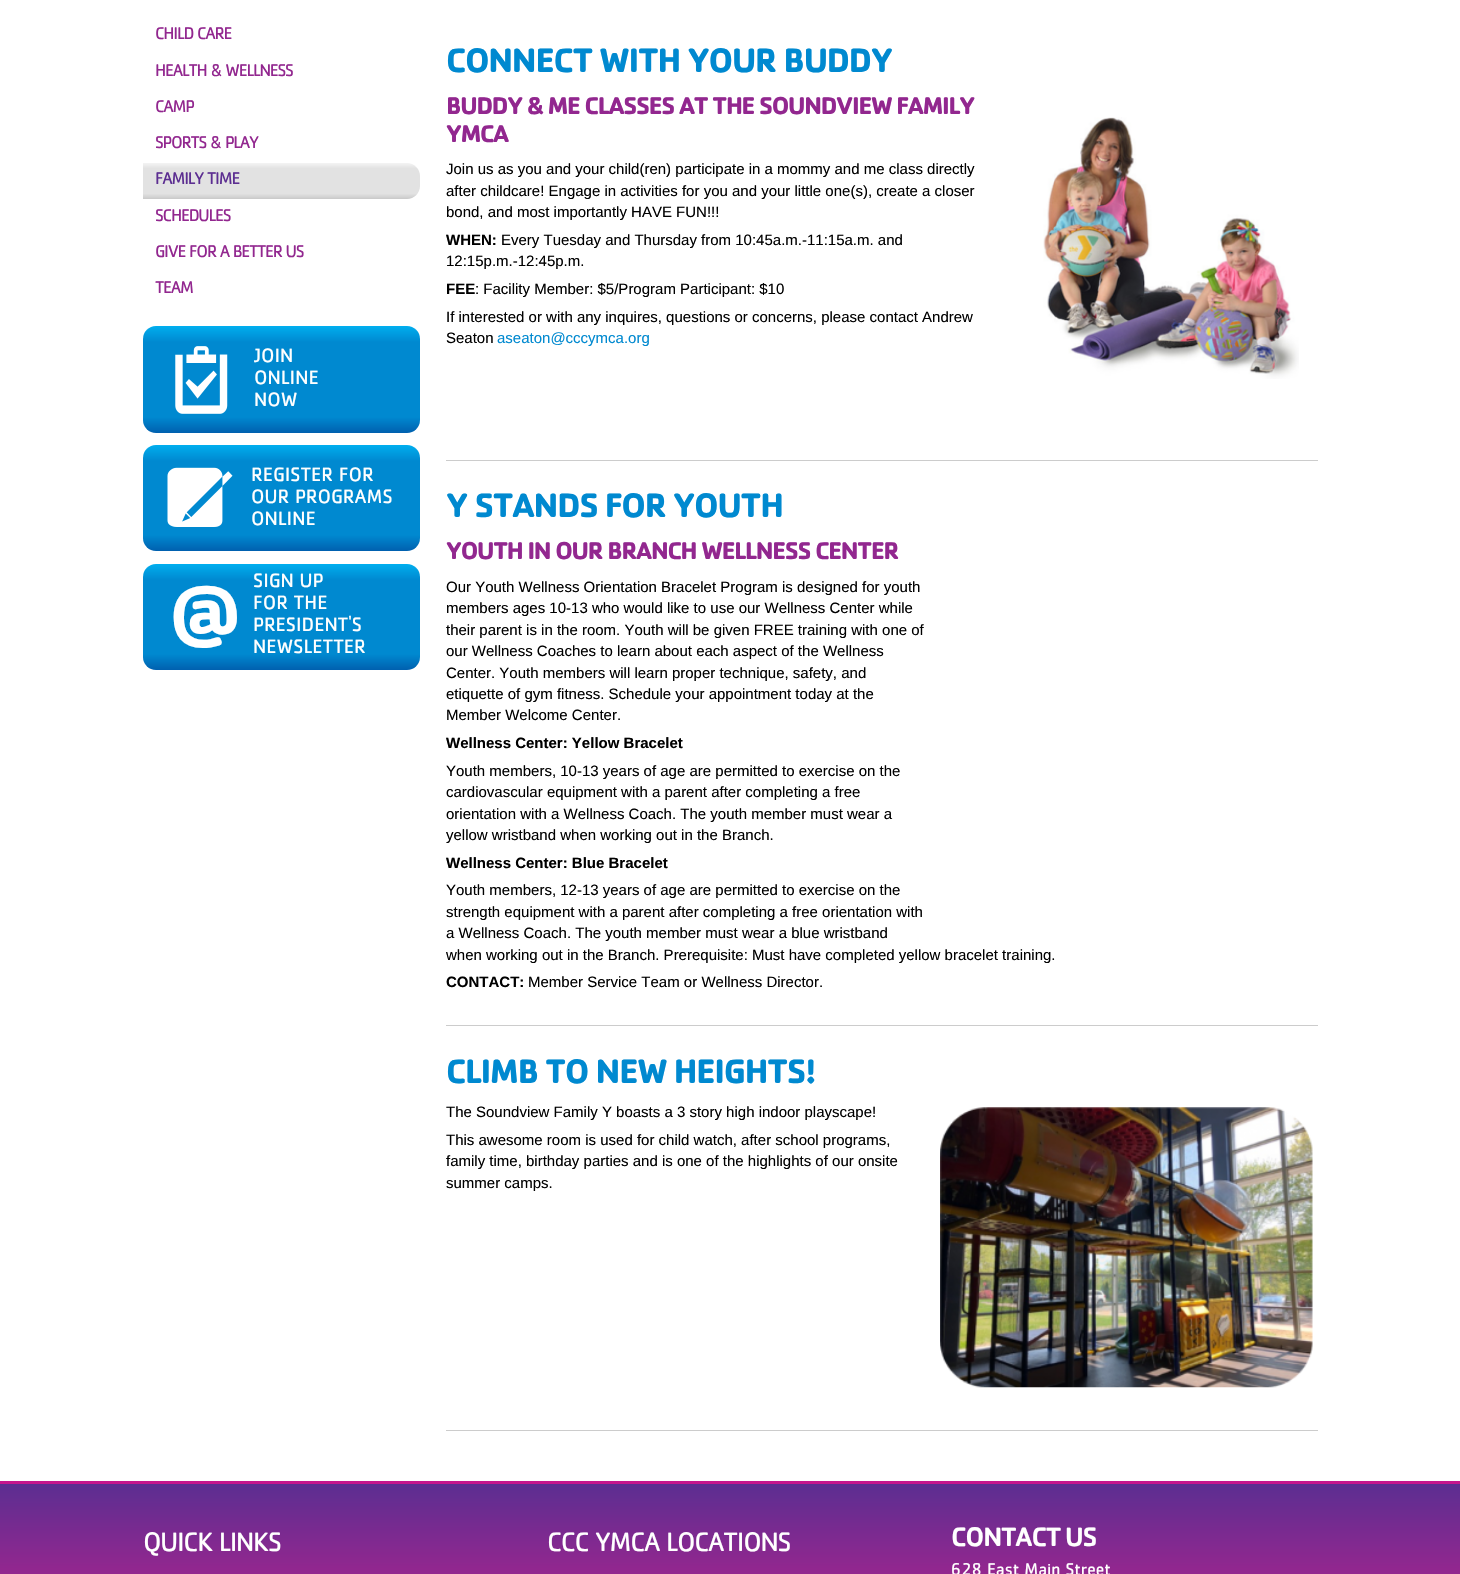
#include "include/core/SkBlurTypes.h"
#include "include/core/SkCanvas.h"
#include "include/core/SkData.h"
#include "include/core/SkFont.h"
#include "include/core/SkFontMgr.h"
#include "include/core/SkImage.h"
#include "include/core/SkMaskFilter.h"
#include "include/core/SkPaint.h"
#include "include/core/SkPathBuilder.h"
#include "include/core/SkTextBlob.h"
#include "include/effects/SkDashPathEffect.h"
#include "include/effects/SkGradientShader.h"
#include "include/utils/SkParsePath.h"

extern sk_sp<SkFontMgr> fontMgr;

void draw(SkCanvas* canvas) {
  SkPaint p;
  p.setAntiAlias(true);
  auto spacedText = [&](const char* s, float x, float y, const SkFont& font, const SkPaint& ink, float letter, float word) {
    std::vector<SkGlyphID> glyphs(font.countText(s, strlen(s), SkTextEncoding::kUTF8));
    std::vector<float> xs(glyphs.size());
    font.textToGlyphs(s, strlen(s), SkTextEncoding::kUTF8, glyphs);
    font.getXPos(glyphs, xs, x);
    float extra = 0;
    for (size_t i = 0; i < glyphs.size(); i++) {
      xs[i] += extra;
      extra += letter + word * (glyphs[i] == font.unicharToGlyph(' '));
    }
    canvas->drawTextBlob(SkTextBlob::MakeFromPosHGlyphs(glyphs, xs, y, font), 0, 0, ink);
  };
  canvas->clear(SK_ColorWHITE);
  {
    const SkColor colors[] = {SkColorSetRGB(244, 244, 244), SkColorSetRGB(226, 226, 226), SkColorSetRGB(226, 226, 226), SkColorSetRGB(201, 201, 201)};
    const float stops[] = {0, 0.15f, 0.85f, 1};
    const SkPoint ends[] = {{281, 163}, {281, 199}};
    p.setShader(SkGradientShader::MakeLinear(ends, colors, stops, 4, SkTileMode::kClamp));
    p.setAlpha(255);
  }
  canvas->drawPath(SkPathBuilder().moveTo(143, 163).lineTo(407, 163).cubicTo(414, 163, 420, 169, 420, 176).lineTo(420, 186).cubicTo(420, 193, 414, 199, 407, 199).lineTo(143, 199).close().detach(), p);
  {
    const SkColor colors[] = {SkColorSetRGB(0, 174, 239), SkColorSetRGB(0, 137, 208), SkColorSetRGB(0, 137, 208), SkColorSetRGB(0, 96, 175)};
    const float stops[] = {0, 0.15f, 0.85f, 1};
    const SkPoint ends[] = {{281, 326}, {281, 433}};
    p.setShader(SkGradientShader::MakeLinear(ends, colors, stops, 4, SkTileMode::kClamp));
    p.setAlpha(255);
  }
  canvas->drawRoundRect(SkRect::MakeLTRB(143, 326, 420, 433), 13, 13, p);
  canvas->drawImageRect(SkImages::DeferredFromEncodedData(SkData::MakeFromFileName("images/1.png")), SkRect::MakeLTRB(175, 346, 228, 414), SkSamplingOptions());
  {
    const SkColor colors[] = {SkColorSetRGB(0, 174, 239), SkColorSetRGB(0, 137, 208), SkColorSetRGB(0, 137, 208), SkColorSetRGB(0, 96, 175)};
    const float stops[] = {0, 0.15f, 0.85f, 1};
    const SkPoint ends[] = {{281, 445}, {281, 551}};
    p.setShader(SkGradientShader::MakeLinear(ends, colors, stops, 4, SkTileMode::kClamp));
    p.setAlpha(255);
  }
  canvas->drawRoundRect(SkRect::MakeLTRB(143, 445, 420, 551), 13, 13, p);
  canvas->drawImageRect(SkImages::DeferredFromEncodedData(SkData::MakeFromFileName("images/2.png")), SkRect::MakeLTRB(167, 467, 233, 527), SkSamplingOptions());
  {
    const SkColor colors[] = {SkColorSetRGB(0, 174, 239), SkColorSetRGB(0, 137, 208), SkColorSetRGB(0, 137, 208), SkColorSetRGB(0, 96, 175)};
    const float stops[] = {0, 0.15f, 0.85f, 1};
    const SkPoint ends[] = {{281, 564}, {281, 670}};
    p.setShader(SkGradientShader::MakeLinear(ends, colors, stops, 4, SkTileMode::kClamp));
    p.setAlpha(255);
  }
  canvas->drawRoundRect(SkRect::MakeLTRB(143, 564, 420, 670), 13, 13, p);
  canvas->drawImageRect(SkImages::DeferredFromEncodedData(SkData::MakeFromFileName("images/3.png")), SkRect::MakeLTRB(1043, 117, 1299, 379), SkSamplingOptions());
  p.setShader(nullptr);
  p.setColor(SkColorSetRGB(204, 204, 204));
  canvas->drawRect(SkRect::MakeLTRB(446, 460, 1318, 461), p);
  canvas->drawRect(SkRect::MakeLTRB(446, 1025, 1318, 1026), p);
  canvas->drawImageRect(SkImages::DeferredFromEncodedData(SkData::MakeFromFileName("images/4.png")), SkRect::MakeLTRB(940, 1107, 1313, 1388), SkSamplingOptions());
  canvas->drawRect(SkRect::MakeLTRB(446, 1430, 1318, 1431), p);
  {
    const SkColor colors[] = {SkColorSetRGB(92, 46, 145), SkColorSetRGB(146, 39, 143), SkColorSetRGB(146, 39, 143)};
    const float stops[] = {0, 0.15f, 0.85f};
    const SkPoint ends[] = {{730, 1484}, {730, 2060}};
    p.setShader(SkGradientShader::MakeLinear(ends, colors, stops, 3, SkTileMode::kClamp));
    p.setAlpha(255);
  }
  canvas->drawRect(SkRect::MakeLTRB(0, 1484, 1460, 1574), p);
  p.setShader(nullptr);
  p.setColor(SkColorSetRGB(198, 22, 141));
  canvas->drawRect(SkRect::MakeLTRB(0, 1481, 1460, 1484), p);
  SkFont font1(fontMgr->matchFamilyStyle("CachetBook", SkFontStyle::Normal()), 17.5f);
  font1.setSubpixel(true);
  p.setColor(SkColorSetRGB(146, 39, 143));
  spacedText("CHILD CARE", 155, 39, font1, p, -1.25f, 0);
  spacedText("HEALTH & WELLNESS", 155, 76, font1, p, -1.25f, 0);
  spacedText("CAMP", 155, 112, font1, p, -1.25f, 0);
  spacedText("SPORTS & PLAY", 155, 148, font1, p, -1.25f, 0);
  p.setColor(SkColorSetRGB(92, 46, 145));
  spacedText("FAMILY TIME", 155, 184, font1, p, -1.25f, 0);
  p.setColor(SkColorSetRGB(146, 39, 143));
  spacedText("SCHEDULES", 155, 221, font1, p, -1.25f, 0);
  spacedText("GIVE FOR A BETTER US", 155, 257, font1, p, -1.25f, 0);
  spacedText("TEAM", 155, 293, font1, p, -1.25f, 0);
  SkFont font2(fontMgr->matchFamilyStyle("CachetBook", SkFontStyle::Normal()), 20);
  font2.setSubpixel(true);
  p.setColor(SK_ColorWHITE);
  canvas->drawString("JOIN", 254, 362, font2, p);
  canvas->drawString("ONLINE", 254, 384, font2, p);
  canvas->drawString("NOW", 254, 406, font2, p);
  canvas->drawString("REGISTER FOR", 251, 481, font2, p);
  canvas->drawString("OUR PROGRAMS", 251, 503, font2, p);
  canvas->drawString("ONLINE", 251, 525, font2, p);
  SkFont font3(fontMgr->matchFamilyStyle("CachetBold", SkFontStyle::Bold()), 68);
  font3.setSubpixel(true);
  canvas->drawString("@", 168, 633, font3, p);
  canvas->drawString("SIGN UP", 253, 587, font2, p);
  canvas->drawString("FOR THE", 253, 609, font2, p);
  canvas->drawString("PRESIDENT'S", 253, 631, font2, p);
  canvas->drawString("NEWSLETTER", 253, 653, font2, p);
  SkFont font4(fontMgr->matchFamilyStyle("CachetBold", SkFontStyle::Bold()), 35);
  font4.setSubpixel(true);
  p.setColor(SkColorSetRGB(0, 137, 208));
  spacedText("CONNECT WITH YOUR BUDDY", 446, 72, font4, p, -1.25f, 0);
  SkFont font5(fontMgr->matchFamilyStyle("CachetBold", SkFontStyle::Bold()), 25);
  font5.setSubpixel(true);
  p.setColor(SkColorSetRGB(146, 39, 143));
  spacedText("BUDDY & ME CLASSES AT THE SOUNDVIEW FAMILY", 446, 114, font5, p, -1.25f, 0);
  spacedText("YMCA", 446, 142, font5, p, -1.25f, 0);
  SkFont font6(fontMgr->matchFamilyStyle("Liberation Sans", SkFontStyle::Normal()), 15);
  font6.setSubpixel(true);
  p.setColor(SK_ColorBLACK);
  canvas->drawString("Join us as you and your child(ren) participate in a mommy and me class directly", 446, 174, font6, p);
  canvas->drawString("after childcare! Engage in activities for you and your little one(s), create a closer", 446, 196, font6, p);
  canvas->drawString("bond, and most importantly HAVE FUN!!!", 446, 217, font6, p);
  SkFont font7(fontMgr->matchFamilyStyle("Liberation Sans", SkFontStyle::Bold()), 15);
  font7.setSubpixel(true);
  canvas->drawString("WHEN:", 446, 245, font7, p);
  canvas->drawString("Every Tuesday and Thursday from 10:45a.m.-11:15a.m. and", 501, 245, font6, p);
  canvas->drawString("12:15p.m.-12:45p.m.", 446, 266, font6, p);
  canvas->drawString("FEE", 446, 294, font7, p);
  canvas->drawString(": Facility Member: $5/Program Participant: $10", 475, 294, font6, p);
  canvas->drawString("If interested or with any inquires, questions or concerns, please contact Andrew", 446, 322, font6, p);
  canvas->drawString("Seaton", 446, 343, font6, p);
  p.setColor(SkColorSetRGB(0, 137, 208));
  canvas->drawString("aseaton@cccymca.org", 497, 343, font6, p);
  spacedText("Y STANDS FOR YOUTH", 446, 517, font4, p, -1.25f, 0);
  p.setColor(SkColorSetRGB(146, 39, 143));
  spacedText("YOUTH IN OUR BRANCH WELLNESS CENTER", 446, 559, font5, p, -1.25f, 0);
  p.setColor(SK_ColorBLACK);
  canvas->drawString("Our Youth Wellness Orientation Bracelet Program is designed for youth", 446, 592, font6, p);
  canvas->drawString("members ages 10-13 who would like to use our Wellness Center while", 446, 613, font6, p);
  canvas->drawString("their parent is in the room. Youth will be given FREE training with one of", 446, 635, font6, p);
  canvas->drawString("our Wellness Coaches to learn about each aspect of the Wellness", 446, 656, font6, p);
  canvas->drawString("Center. Youth members will learn proper technique, safety, and", 446, 678, font6, p);
  canvas->drawString("etiquette of gym fitness. Schedule your appointment today at the", 446, 699, font6, p);
  canvas->drawString("Member Welcome Center.", 446, 720, font6, p);
  canvas->drawString("Wellness Center: Yellow Bracelet", 446, 748, font7, p);
  canvas->drawString("Youth members, 10-13 years of age are permitted to exercise on the", 446, 776, font6, p);
  canvas->drawString("cardiovascular equipment with a parent after completing a free", 446, 797, font6, p);
  canvas->drawString("orientation with a Wellness Coach. The youth member must wear a", 446, 819, font6, p);
  canvas->drawString("yellow wristband when working out in the Branch.", 446, 840, font6, p);
  canvas->drawString("Wellness Center: Blue Bracelet", 446, 868, font7, p);
  canvas->drawString("Youth members, 12-13 years of age are permitted to exercise on the", 446, 895, font6, p);
  canvas->drawString("strength equipment with a parent after completing a free orientation with", 446, 917, font6, p);
  canvas->drawString("a Wellness Coach. The youth member must wear a blue wristband", 446, 938, font6, p);
  canvas->drawString("when working out in the Branch. Prerequisite: Must have completed yellow bracelet training.", 446, 960, font6, p);
  canvas->drawString("CONTACT:", 446, 987, font7, p);
  canvas->drawString("Member Service Team or Wellness Director.", 528, 987, font6, p);
  p.setColor(SkColorSetRGB(0, 137, 208));
  spacedText("CLIMB TO NEW HEIGHTS!", 446, 1083, font4, p, -1.25f, 0);
  p.setColor(SK_ColorBLACK);
  canvas->drawString("The Soundview Family Y boasts a 3 story high indoor playscape!", 446, 1117, font6, p);
  canvas->drawString("This awesome room is used for child watch, after school programs,", 446, 1145, font6, p);
  canvas->drawString("family time, birthday parties and is one of the highlights of our onsite", 446, 1166, font6, p);
  canvas->drawString("summer camps.", 446, 1188, font6, p);
  SkFont font8(fontMgr->matchFamilyStyle("CachetBook", SkFontStyle::Normal()), 27.5f);
  font8.setSubpixel(true);
  p.setColor(SK_ColorWHITE);
  spacedText("QUICK LINKS", 143, 1551, font8, p, -1.25f, 0);
  spacedText("CCC YMCA LOCATIONS", 547, 1551, font8, p, -1.25f, 0);
  SkFont font9(fontMgr->matchFamilyStyle("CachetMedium", SkFontStyle(500, SkFontStyle::kNormal_Width, SkFontStyle::kUpright_Slant)), 27.5f);
  font9.setSubpixel(true);
  spacedText("CONTACT US", 951, 1546, font9, p, -1.25f, 0);
  canvas->drawString("628 East Main Street", 951, 1575, font1, p);
}
